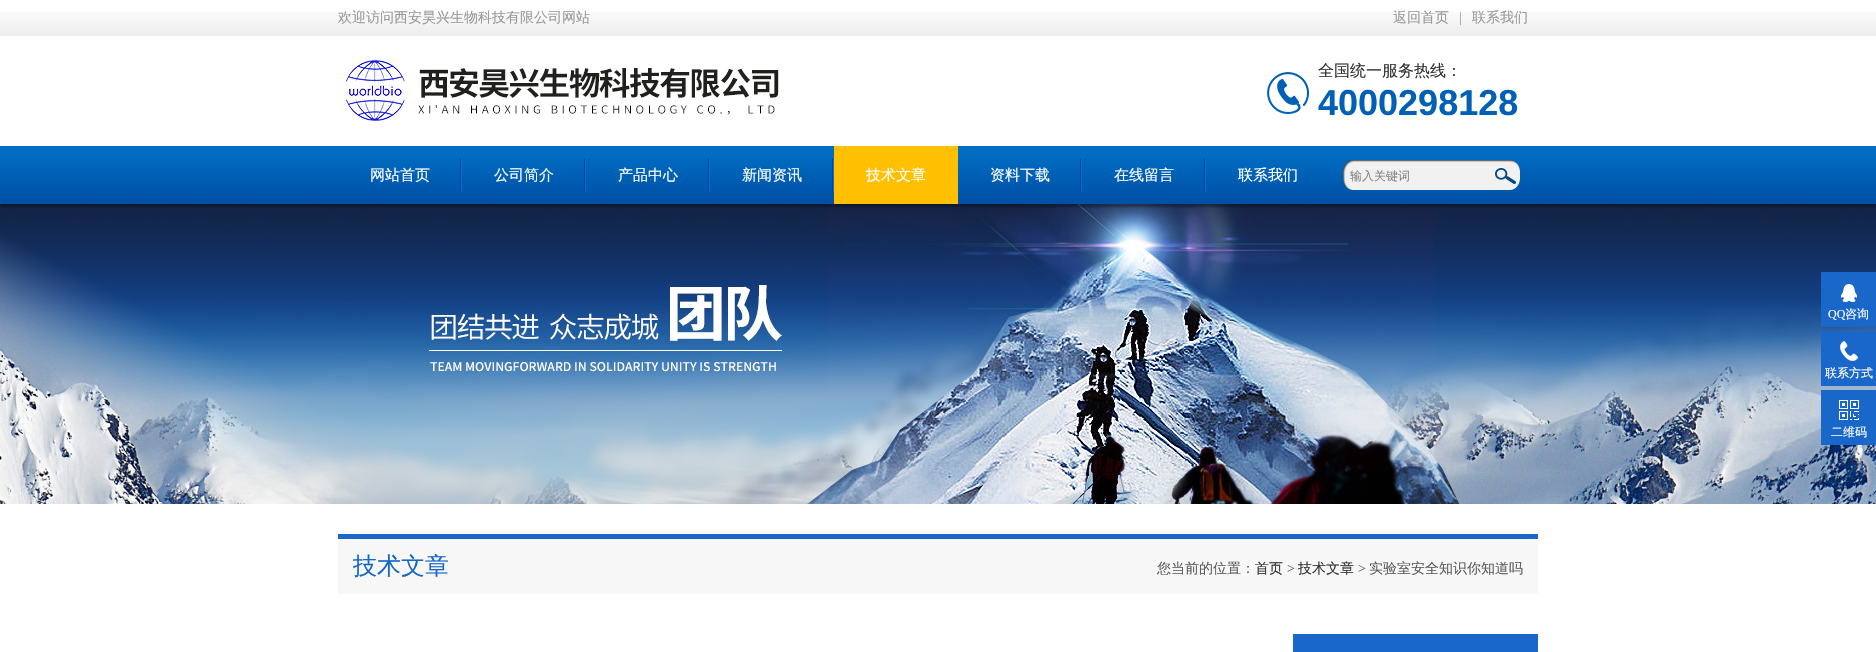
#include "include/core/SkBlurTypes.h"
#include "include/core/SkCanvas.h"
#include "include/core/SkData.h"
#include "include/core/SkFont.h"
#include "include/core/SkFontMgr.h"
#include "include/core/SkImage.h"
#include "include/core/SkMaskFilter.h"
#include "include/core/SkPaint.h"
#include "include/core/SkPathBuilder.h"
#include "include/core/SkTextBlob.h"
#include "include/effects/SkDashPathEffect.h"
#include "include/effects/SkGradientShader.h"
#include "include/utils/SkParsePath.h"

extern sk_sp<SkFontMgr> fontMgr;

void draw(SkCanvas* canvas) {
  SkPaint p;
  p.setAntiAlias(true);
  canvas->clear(SK_ColorWHITE);
  canvas->drawImageRect(SkImages::DeferredFromEncodedData(SkData::MakeFromFileName("images/1.png")), SkRect::MakeLTRB(0, 12, 1876, 36), SkSamplingOptions());
  canvas->drawImageRect(SkImages::DeferredFromEncodedData(SkData::MakeFromFileName("images/2.png")), SkRect::MakeLTRB(346, 60, 779, 121), SkSamplingOptions());
  canvas->drawImageRect(SkImages::DeferredFromEncodedData(SkData::MakeFromFileName("images/3.png")), SkRect::MakeLTRB(1267, 72, 1309, 114), SkSamplingOptions());
  canvas->drawImageRect(SkImages::DeferredFromEncodedData(SkData::MakeFromFileName("images/8.png")), SkRect::MakeLTRB(0, 204, 1876, 504), SkSamplingOptions());
  p.setColor(SkColorSetARGB(77, 0, 0, 0));
  p.setMaskFilter(SkMaskFilter::MakeBlur(kNormal_SkBlurStyle, 1));
  canvas->drawRect(SkRect::MakeLTRB(1, 151, 1875, 207), p);
  p.setMaskFilter(nullptr);
  canvas->drawImageRect(SkImages::DeferredFromEncodedData(SkData::MakeFromFileName("images/4.png")), SkRect::MakeLTRB(0, 146, 1876, 204), SkSamplingOptions());
  canvas->drawImageRect(SkImages::DeferredFromEncodedData(SkData::MakeFromFileName("images/5.png")), SkRect::MakeLTRB(460, 159, 462, 192), SkSamplingOptions());
  canvas->drawImageRect(SkImages::DeferredFromEncodedData(SkData::MakeFromFileName("images/5.png")), SkRect::MakeLTRB(584, 159, 586, 192), SkSamplingOptions());
  canvas->drawImageRect(SkImages::DeferredFromEncodedData(SkData::MakeFromFileName("images/5.png")), SkRect::MakeLTRB(708, 159, 710, 192), SkSamplingOptions());
  canvas->drawImageRect(SkImages::DeferredFromEncodedData(SkData::MakeFromFileName("images/5.png")), SkRect::MakeLTRB(832, 159, 834, 192), SkSamplingOptions());
  p.setColor(SkColorSetRGB(255, 192, 1));
  canvas->drawRect(SkRect::MakeLTRB(834, 146, 958, 204), p);
  canvas->drawImageRect(SkImages::DeferredFromEncodedData(SkData::MakeFromFileName("images/5.png")), SkRect::MakeLTRB(1080, 159, 1082, 192), SkSamplingOptions());
  canvas->drawImageRect(SkImages::DeferredFromEncodedData(SkData::MakeFromFileName("images/5.png")), SkRect::MakeLTRB(1204, 159, 1206, 192), SkSamplingOptions());
  canvas->drawImageRect(SkImages::DeferredFromEncodedData(SkData::MakeFromFileName("images/6.png")), SkRect::MakeLTRB(1343, 160, 1520, 190), SkSamplingOptions());
  canvas->drawImageRect(SkImages::DeferredFromEncodedData(SkData::MakeFromFileName("images/7.png")), SkRect::MakeLTRB(1495, 168, 1516, 184), SkSamplingOptions());
  p.setColor(SkColorSetRGB(25, 103, 201));
  canvas->drawRect(SkRect::MakeLTRB(1821, 272, 1876, 327), p);
  canvas->drawImageRect(SkImages::DeferredFromEncodedData(SkData::MakeFromFileName("images/9.png")), SkRect::MakeLTRB(1841, 284, 1857, 302), SkSamplingOptions());
  canvas->drawRect(SkRect::MakeLTRB(1821, 331, 1876, 386), p);
  canvas->drawImageRect(SkImages::DeferredFromEncodedData(SkData::MakeFromFileName("images/10.png")), SkRect::MakeLTRB(1840, 341, 1858, 361), SkSamplingOptions());
  canvas->drawRect(SkRect::MakeLTRB(1821, 390, 1876, 445), p);
  canvas->drawImageRect(SkImages::DeferredFromEncodedData(SkData::MakeFromFileName("images/11.png")), SkRect::MakeLTRB(1839, 400, 1859, 420), SkSamplingOptions());
  p.setColor(SkColorSetRGB(247, 247, 247));
  canvas->drawRect(SkRect::MakeLTRB(338, 539, 1538, 594), p);
  p.setColor(SkColorSetRGB(25, 103, 201));
  canvas->drawRect(SkRect::MakeLTRB(338, 534, 1538, 539), p);
  canvas->drawRect(SkRect::MakeLTRB(1293, 634, 1538, 652), p);
  SkFont font1(fontMgr->matchFamilyStyle("WenQuanYi Zen Hei", SkFontStyle(500, SkFontStyle::kNormal_Width, SkFontStyle::kUpright_Slant)), 14);
  font1.setSubpixel(true);
  p.setColor(SkColorSetRGB(153, 153, 153));
  canvas->drawString("欢迎访问西安昊兴生物科技有限公司网站", 338, 22, font1, p);
  canvas->drawString("返回首页", 1393, 22, font1, p);
  SkFont font2(fontMgr->matchFamilyStyle("Liberation Serif", SkFontStyle::Normal()), 14);
  font2.setSubpixel(true);
  canvas->drawString("|", 1459, 22, font2, p);
  canvas->drawString("联系我们", 1472, 22, font1, p);
  SkFont font3(fontMgr->matchFamilyStyle("WenQuanYi Zen Hei", SkFontStyle(500, SkFontStyle::kNormal_Width, SkFontStyle::kUpright_Slant)), 16);
  font3.setSubpixel(true);
  p.setColor(SkColorSetRGB(51, 51, 51));
  canvas->drawString("全国统一服务热线：", 1318, 76, font3, p);
  SkFont font4(fontMgr->matchFamilyStyle("Liberation Sans", SkFontStyle::Bold()), 36);
  font4.setSubpixel(true);
  p.setColor(SkColorSetRGB(0, 96, 181));
  canvas->drawString("4000298128", 1318, 115, font4, p);
  SkFont font5(fontMgr->matchFamilyStyle("WenQuanYi Zen Hei", SkFontStyle(500, SkFontStyle::kNormal_Width, SkFontStyle::kUpright_Slant)), 15);
  font5.setSubpixel(true);
  p.setColor(SK_ColorWHITE);
  canvas->drawString("网站首页", 370, 180, font5, p);
  canvas->drawString("公司简介", 494, 180, font5, p);
  canvas->drawString("产品中心", 618, 180, font5, p);
  canvas->drawString("新闻资讯", 742, 180, font5, p);
  canvas->drawString("技术文章", 866, 180, font5, p);
  canvas->drawString("资料下载", 990, 180, font5, p);
  canvas->drawString("在线留言", 1114, 180, font5, p);
  canvas->drawString("联系我们", 1238, 180, font5, p);
  SkFont font6(fontMgr->matchFamilyStyle("WenQuanYi Zen Hei", SkFontStyle(500, SkFontStyle::kNormal_Width, SkFontStyle::kUpright_Slant)), 12);
  font6.setSubpixel(true);
  p.setColor(SkColorSetRGB(133, 133, 133));
  canvas->drawString("输入关键词", 1350, 180, font6, p);
  SkFont font7(fontMgr->matchFamilyStyle("Liberation Serif", SkFontStyle::Normal()), 12);
  font7.setSubpixel(true);
  p.setColor(SK_ColorWHITE);
  canvas->drawString("QQ", 1828, 318, font7, p);
  canvas->drawString("咨询", 1845, 318, font6, p);
  canvas->drawString("联系方式", 1825, 377, font6, p);
  canvas->drawString("二维码", 1831, 436, font6, p);
  SkFont font8(fontMgr->matchFamilyStyle("WenQuanYi Zen Hei", SkFontStyle(500, SkFontStyle::kNormal_Width, SkFontStyle::kUpright_Slant)), 24);
  font8.setSubpixel(true);
  p.setColor(SkColorSetRGB(21, 104, 197));
  canvas->drawString("技术文章", 353, 574, font8, p);
  p.setColor(SkColorSetRGB(92, 92, 92));
  canvas->drawString("您当前的位置：", 1157, 573, font1, p);
  p.setColor(SkColorSetRGB(51, 51, 51));
  canvas->drawString("首页", 1255, 573, font1, p);
  p.setColor(SkColorSetRGB(92, 92, 92));
  canvas->drawString(">", 1287, 573, font2, p);
  p.setColor(SkColorSetRGB(51, 51, 51));
  canvas->drawString("技术文章", 1298, 573, font1, p);
  p.setColor(SkColorSetRGB(92, 92, 92));
  canvas->drawString(">", 1358, 573, font2, p);
  canvas->drawString("实验室安全知识你知道吗", 1369, 573, font1, p);
}
